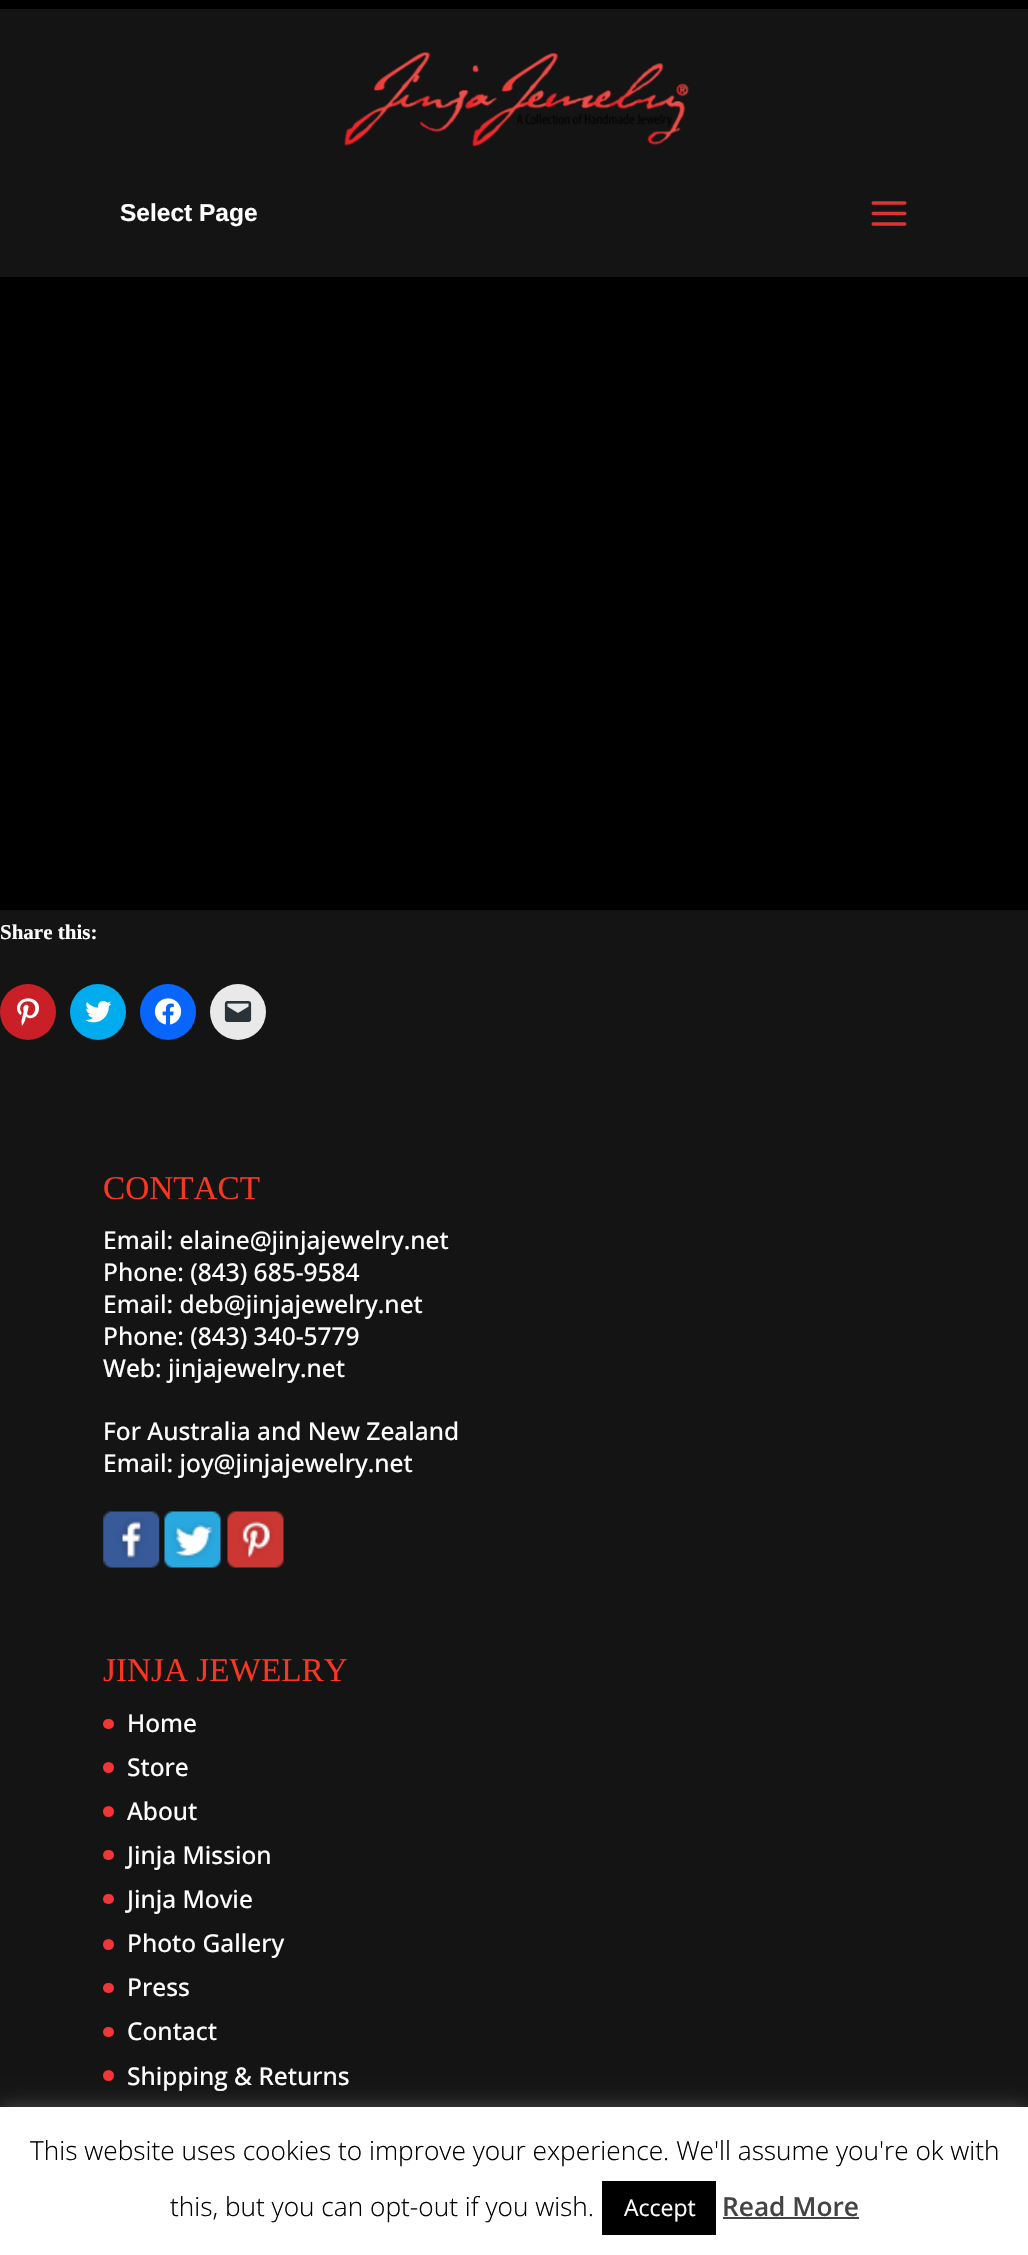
#include "include/core/SkBlurTypes.h"
#include "include/core/SkCanvas.h"
#include "include/core/SkData.h"
#include "include/core/SkFont.h"
#include "include/core/SkFontMgr.h"
#include "include/core/SkImage.h"
#include "include/core/SkMaskFilter.h"
#include "include/core/SkPaint.h"
#include "include/core/SkPathBuilder.h"
#include "include/core/SkTextBlob.h"
#include "include/effects/SkDashPathEffect.h"
#include "include/effects/SkGradientShader.h"
#include "include/utils/SkParsePath.h"

extern sk_sp<SkFontMgr> fontMgr;

void draw(SkCanvas* canvas) {
  SkPaint p;
  p.setAntiAlias(true);
  canvas->clear(SkColorSetRGB(20, 20, 20));
  p.setColor(SK_ColorBLACK);
  canvas->drawRect(SkRect::MakeLTRB(0, 0, 1028, 9), p);
  canvas->drawImageRect(SkImages::DeferredFromEncodedData(SkData::MakeFromFileName("images/1.png")), SkRect::MakeLTRB(344, 51, 689, 147), SkSamplingOptions());
  canvas->drawImageRect(SkImages::DeferredFromEncodedData(SkData::MakeFromFileName("images/2.png")), SkRect::MakeLTRB(871, 201, 907, 226), SkSamplingOptions());
  canvas->drawRect(SkRect::MakeLTRB(0, 277, 1028, 910), p);
  p.setColor(SkColorSetRGB(202, 31, 39));
  canvas->drawCircle(28, 1012, 28, p);
  canvas->drawImageRect(SkImages::DeferredFromEncodedData(SkData::MakeFromFileName("images/3.png")), SkRect::MakeLTRB(17, 998, 39, 1026), SkSamplingOptions());
  p.setColor(SkColorSetRGB(0, 172, 238));
  canvas->drawCircle(98, 1012, 28, p);
  canvas->drawImageRect(SkImages::DeferredFromEncodedData(SkData::MakeFromFileName("images/4.png")), SkRect::MakeLTRB(85, 1001, 112, 1023), SkSamplingOptions());
  p.setColor(SkColorSetRGB(8, 102, 255));
  canvas->drawCircle(168, 1012, 28, p);
  canvas->drawImageRect(SkImages::DeferredFromEncodedData(SkData::MakeFromFileName("images/5.png")), SkRect::MakeLTRB(154, 998, 182, 1025), SkSamplingOptions());
  p.setColor(SkColorSetRGB(233, 233, 233));
  canvas->drawCircle(238, 1012, 28, p);
  canvas->drawImageRect(SkImages::DeferredFromEncodedData(SkData::MakeFromFileName("images/6.png")), SkRect::MakeLTRB(224, 1001, 252, 1022), SkSamplingOptions());
  canvas->drawImageRect(SkImages::DeferredFromEncodedData(SkData::MakeFromFileName("images/7.png")), SkRect::MakeLTRB(103, 1511, 160, 1568), SkSamplingOptions());
  canvas->drawImageRect(SkImages::DeferredFromEncodedData(SkData::MakeFromFileName("images/8.png")), SkRect::MakeLTRB(164, 1511, 221, 1568), SkSamplingOptions());
  canvas->drawImageRect(SkImages::DeferredFromEncodedData(SkData::MakeFromFileName("images/9.png")), SkRect::MakeLTRB(227, 1511, 284, 1568), SkSamplingOptions());
  p.setColor(SkColorSetRGB(239, 55, 55));
  canvas->drawRoundRect(SkRect::MakeLTRB(103, 1719, 114, 1729), 5, 5, p);
  canvas->drawCircle(108.5f, 1767.5f, 5.5f, p);
  canvas->drawCircle(108.5f, 1811.5f, 5.5f, p);
  canvas->drawRoundRect(SkRect::MakeLTRB(103, 1850, 114, 1860), 5, 5, p);
  canvas->drawRoundRect(SkRect::MakeLTRB(103, 1894, 114, 1904), 5, 5, p);
  canvas->drawCircle(108.5f, 1944.5f, 5.5f, p);
  canvas->drawRoundRect(SkRect::MakeLTRB(103, 1983, 114, 1993), 5, 5, p);
  canvas->drawRoundRect(SkRect::MakeLTRB(103, 2027, 114, 2037), 5, 5, p);
  canvas->drawCircle(108.5f, 2075.5f, 5.5f, p);
  p.setColor(SkColorSetARGB(77, 172, 171, 171));
  p.setMaskFilter(SkMaskFilter::MakeBlur(kNormal_SkBlurStyle, 9));
  canvas->drawRect(SkRect::MakeLTRB(0, 2105, 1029, 2254), p);
  p.setMaskFilter(nullptr);
  p.setColor(SK_ColorWHITE);
  canvas->drawRect(SkRect::MakeLTRB(0, 2107, 1028, 2255), p);
  p.setColor(SK_ColorBLACK);
  canvas->drawRect(SkRect::MakeLTRB(602, 2181, 716, 2235), p);
  p.setColor(SkColorSetRGB(68, 68, 68));
  canvas->drawRect(SkRect::MakeLTRB(723, 2217, 859, 2219), p);
  SkFont font1(fontMgr->matchFamilyStyle("Liberation Sans", SkFontStyle::Bold()), 24.5f);
  font1.setSubpixel(true);
  p.setColor(SK_ColorWHITE);
  canvas->drawString("Select Page", 120, 221, font1, p);
  SkFont font2(fontMgr->matchFamilyStyle("Liberation Serif", SkFontStyle::Bold()), 21);
  font2.setSubpixel(true);
  canvas->drawString("Share this:", 0, 939, font2, p);
  SkFont font3(fontMgr->matchFamilyStyle("Liberation Serif", SkFontStyle::Normal()), 33.25f);
  font3.setSubpixel(true);
  p.setColor(SkColorSetRGB(249, 54, 32));
  canvas->drawString("CONTACT", 103, 1199, font3, p);
  SkFont font4(fontMgr->matchFamilyStyle("Open Sans", SkFontStyle(500, SkFontStyle::kNormal_Width, SkFontStyle::kUpright_Slant)), 24.5f);
  font4.setSubpixel(true);
  p.setColor(SK_ColorWHITE);
  canvas->drawString("Email: elaine@jinjajewelry.net", 103, 1249, font4, p);
  canvas->drawString("Phone: (843) 685-9584", 103, 1281, font4, p);
  canvas->drawString("Email: deb@jinjajewelry.net", 103, 1313, font4, p);
  canvas->drawString("Phone: (843) 340-5779", 103, 1345, font4, p);
  canvas->drawString("Web: jinjajewelry.net", 103, 1377, font4, p);
  canvas->drawString("For Australia and New Zealand", 103, 1440, font4, p);
  canvas->drawString("Email: joy@jinjajewelry.net", 103, 1472, font4, p);
  p.setColor(SkColorSetRGB(249, 54, 32));
  canvas->drawString("JINJA JEWELRY", 103, 1681, font3, p);
  p.setColor(SK_ColorWHITE);
  canvas->drawString("Home", 127, 1732, font4, p);
  canvas->drawString("Store", 127, 1776, font4, p);
  canvas->drawString("About", 127, 1820, font4, p);
  canvas->drawString("Jinja Mission", 127, 1864, font4, p);
  canvas->drawString("Jinja Movie", 127, 1908, font4, p);
  canvas->drawString("Photo Gallery", 127, 1952, font4, p);
  canvas->drawString("Press", 127, 1996, font4, p);
  canvas->drawString("Contact", 127, 2040, font4, p);
  canvas->drawString("Shipping & Returns", 127, 2085, font4, p);
  SkFont font5(fontMgr->matchFamilyStyle("Open Sans", SkFontStyle(300, SkFontStyle::kNormal_Width, SkFontStyle::kUpright_Slant)), 26.25f);
  font5.setSubpixel(true);
  p.setColor(SK_ColorBLACK);
  canvas->drawString("This website uses cookies to improve your experience. We'll assume you're ok with", 30, 2160, font5, p);
  canvas->drawString("this, but you can opt-out if you wish.", 170, 2216, font5, p);
  SkFont font6(fontMgr->matchFamilyStyle("Open Sans", SkFontStyle::Normal()), 23);
  font6.setSubpixel(true);
  p.setColor(SK_ColorWHITE);
  canvas->drawString("Accept", 624, 2216, font6, p);
  SkFont font7(fontMgr->matchFamilyStyle("Open Sans", SkFontStyle(600, SkFontStyle::kNormal_Width, SkFontStyle::kUpright_Slant)), 26.25f);
  font7.setSubpixel(true);
  p.setColor(SkColorSetRGB(68, 68, 68));
  canvas->drawString("Read More", 722, 2216, font7, p);
}
